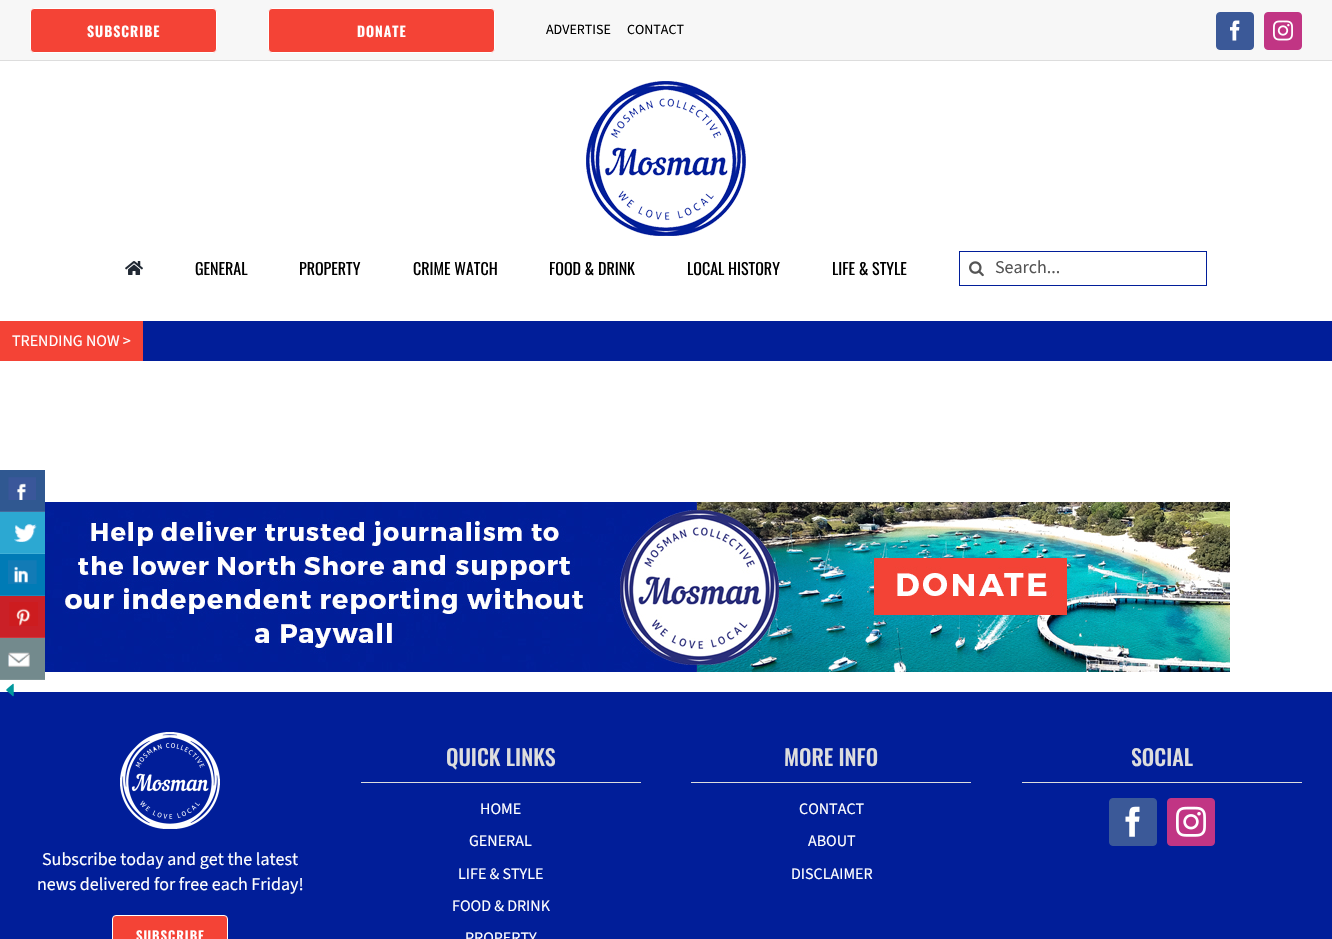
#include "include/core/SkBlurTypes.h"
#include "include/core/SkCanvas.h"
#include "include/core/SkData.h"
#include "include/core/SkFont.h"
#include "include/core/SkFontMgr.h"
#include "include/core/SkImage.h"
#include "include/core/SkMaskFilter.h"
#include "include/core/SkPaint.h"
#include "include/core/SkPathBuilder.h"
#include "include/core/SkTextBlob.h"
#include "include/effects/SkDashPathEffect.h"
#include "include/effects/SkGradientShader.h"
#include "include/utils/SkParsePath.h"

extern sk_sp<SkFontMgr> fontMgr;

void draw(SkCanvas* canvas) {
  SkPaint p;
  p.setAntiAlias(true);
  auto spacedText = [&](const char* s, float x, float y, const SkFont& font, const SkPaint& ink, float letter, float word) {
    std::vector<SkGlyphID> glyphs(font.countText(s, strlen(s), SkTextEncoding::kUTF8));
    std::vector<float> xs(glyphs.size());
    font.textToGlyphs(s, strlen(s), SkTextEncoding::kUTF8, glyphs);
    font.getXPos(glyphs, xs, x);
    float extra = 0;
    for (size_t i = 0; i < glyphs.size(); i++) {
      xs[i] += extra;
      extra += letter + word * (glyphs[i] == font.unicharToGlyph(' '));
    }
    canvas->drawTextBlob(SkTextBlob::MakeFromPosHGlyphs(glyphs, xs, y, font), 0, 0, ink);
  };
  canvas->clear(SK_ColorWHITE);
  p.setColor(SkColorSetRGB(247, 247, 247));
  canvas->drawRect(SkRect::MakeLTRB(0, 0, 1332, 60), p);
  p.setColor(SkColorSetRGB(221, 221, 221));
  canvas->drawRect(SkRect::MakeLTRB(0, 60, 1332, 61), p);
  p.setColor(SkColorSetRGB(244, 67, 54));
  canvas->drawRoundRect(SkRect::MakeLTRB(30.5f, 8.5f, 216.5f, 52.5f), 3.5f, 3.5f, p);
  p.setStyle(SkPaint::kStroke_Style);
  p.setStrokeWidth(1);
  p.setColor(SK_ColorWHITE);
  canvas->drawRoundRect(SkRect::MakeLTRB(30.5f, 8.5f, 216.5f, 52.5f), 3.5f, 3.5f, p);
  p.setStyle(SkPaint::kFill_Style);
  p.setColor(SkColorSetRGB(244, 67, 54));
  canvas->drawRoundRect(SkRect::MakeLTRB(268.5f, 8.5f, 494.5f, 52.5f), 3.5f, 3.5f, p);
  p.setStyle(SkPaint::kStroke_Style);
  p.setColor(SK_ColorWHITE);
  canvas->drawRoundRect(SkRect::MakeLTRB(268.5f, 8.5f, 494.5f, 52.5f), 3.5f, 3.5f, p);
  p.setStyle(SkPaint::kFill_Style);
  p.setColor(SkColorSetRGB(59, 89, 152));
  canvas->drawRoundRect(SkRect::MakeLTRB(1216.5f, 12.5f, 1253.5f, 49.5f), 3.5f, 3.5f, p);
  p.setStyle(SkPaint::kStroke_Style);
  canvas->drawRoundRect(SkRect::MakeLTRB(1216.5f, 12.5f, 1253.5f, 49.5f), 3.5f, 3.5f, p);
  canvas->drawImageRect(SkImages::DeferredFromEncodedData(SkData::MakeFromFileName("images/1.png")), SkRect::MakeLTRB(1230, 20, 1240, 41), SkSamplingOptions());
  p.setStyle(SkPaint::kFill_Style);
  p.setColor(SkColorSetRGB(193, 53, 132));
  canvas->drawRoundRect(SkRect::MakeLTRB(1264.5f, 12.5f, 1301.5f, 49.5f), 3.5f, 3.5f, p);
  p.setStyle(SkPaint::kStroke_Style);
  canvas->drawRoundRect(SkRect::MakeLTRB(1264.5f, 12.5f, 1301.5f, 49.5f), 3.5f, 3.5f, p);
  canvas->drawImageRect(SkImages::DeferredFromEncodedData(SkData::MakeFromFileName("images/2.png")), SkRect::MakeLTRB(1273, 20, 1293, 41), SkSamplingOptions());
  canvas->drawImageRect(SkImages::DeferredFromEncodedData(SkData::MakeFromFileName("images/3.png")), SkRect::MakeLTRB(586, 81, 746, 236), SkSamplingOptions());
  canvas->drawImageRect(SkImages::DeferredFromEncodedData(SkData::MakeFromFileName("images/4.png")), SkRect::MakeLTRB(125, 261, 143, 275), SkSamplingOptions());
  p.setColor(SkColorSetRGB(1, 30, 153));
  canvas->drawRect(SkRect::MakeLTRB(959.5f, 251.5f, 1206.5f, 285.5f), p);
  canvas->drawImageRect(SkImages::DeferredFromEncodedData(SkData::MakeFromFileName("images/5.png")), SkRect::MakeLTRB(969, 261, 984, 277), SkSamplingOptions());
  p.setStyle(SkPaint::kFill_Style);
  canvas->drawRect(SkRect::MakeLTRB(143, 321, 1332, 361), p);
  p.setColor(SkColorSetRGB(244, 67, 54));
  canvas->drawRect(SkRect::MakeLTRB(0, 321, 143, 361), p);
  canvas->drawImageRect(SkImages::DeferredFromEncodedData(SkData::MakeFromFileName("images/6.png")), SkRect::MakeLTRB(45, 502, 1230, 672), SkSamplingOptions());
  p.setColor(SkColorSetRGB(1, 30, 153));
  canvas->drawRect(SkRect::MakeLTRB(0, 692, 1332, 939), p);
  p.setColor(SkColorSetRGB(221, 221, 221));
  canvas->drawRect(SkRect::MakeLTRB(361, 782, 641, 783), p);
  canvas->drawRect(SkRect::MakeLTRB(691, 782, 971, 783), p);
  canvas->drawRect(SkRect::MakeLTRB(1022, 782, 1302, 783), p);
  p.setColor(SkColorSetRGB(59, 89, 152));
  canvas->drawRoundRect(SkRect::MakeLTRB(1109.5f, 798.5f, 1156.5f, 845.5f), 3.5f, 3.5f, p);
  p.setStyle(SkPaint::kStroke_Style);
  canvas->drawRoundRect(SkRect::MakeLTRB(1109.5f, 798.5f, 1156.5f, 845.5f), 3.5f, 3.5f, p);
  canvas->drawImageRect(SkImages::DeferredFromEncodedData(SkData::MakeFromFileName("images/7.png")), SkRect::MakeLTRB(1125, 806, 1140, 837), SkSamplingOptions());
  p.setStyle(SkPaint::kFill_Style);
  p.setColor(SkColorSetRGB(193, 53, 132));
  canvas->drawRoundRect(SkRect::MakeLTRB(1167.5f, 798.5f, 1214.5f, 845.5f), 3.5f, 3.5f, p);
  p.setStyle(SkPaint::kStroke_Style);
  canvas->drawRoundRect(SkRect::MakeLTRB(1167.5f, 798.5f, 1214.5f, 845.5f), 3.5f, 3.5f, p);
  canvas->drawImageRect(SkImages::DeferredFromEncodedData(SkData::MakeFromFileName("images/8.png")), SkRect::MakeLTRB(1176, 806, 1206, 837), SkSamplingOptions());
  canvas->drawImageRect(SkImages::DeferredFromEncodedData(SkData::MakeFromFileName("images/9.png")), SkRect::MakeLTRB(120, 732, 220, 829), SkSamplingOptions());
  p.setStyle(SkPaint::kFill_Style);
  p.setColor(SkColorSetRGB(244, 67, 54));
  canvas->drawRoundRect(SkRect::MakeLTRB(112.5f, 915.5f, 227.5f, 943.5f), 3.5f, 3.5f, p);
  p.setStyle(SkPaint::kStroke_Style);
  p.setColor(SK_ColorWHITE);
  canvas->drawRoundRect(SkRect::MakeLTRB(112.5f, 915.5f, 227.5f, 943.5f), 3.5f, 3.5f, p);
  p.setStyle(SkPaint::kFill_Style);
  p.setColor(SkColorSetRGB(48, 88, 145));
  canvas->drawRect(SkRect::MakeLTRB(0, 470, 45, 511), p);
  p.setColor(SkColorSetRGB(69, 105, 156));
  canvas->drawRect(SkRect::MakeLTRB(0, 511, 45, 512), p);
  canvas->drawImageRect(SkImages::DeferredFromEncodedData(SkData::MakeFromFileName("images/10.png")), SkRect::MakeLTRB(8, 477, 36, 500), SkSamplingOptions());
  p.setColor(SkColorSetRGB(44, 168, 210));
  canvas->drawRect(SkRect::MakeLTRB(0, 512, 45, 553), p);
  p.setColor(SkColorSetRGB(65, 177, 215));
  canvas->drawRect(SkRect::MakeLTRB(0, 553, 45, 554), p);
  canvas->drawImageRect(SkImages::DeferredFromEncodedData(SkData::MakeFromFileName("images/11.png")), SkRect::MakeLTRB(14, 524, 37, 542), SkSamplingOptions());
  p.setColor(SkColorSetRGB(0, 123, 182));
  canvas->drawRect(SkRect::MakeLTRB(0, 554, 45, 595), p);
  p.setColor(SkColorSetRGB(26, 136, 189));
  canvas->drawRect(SkRect::MakeLTRB(0, 595, 45, 596), p);
  canvas->drawImageRect(SkImages::DeferredFromEncodedData(SkData::MakeFromFileName("images/12.png")), SkRect::MakeLTRB(8, 560, 37, 584), SkSamplingOptions());
  p.setColor(SkColorSetRGB(202, 32, 39));
  canvas->drawRect(SkRect::MakeLTRB(0, 596, 45, 637), p);
  p.setColor(SkColorSetRGB(207, 54, 61));
  canvas->drawRect(SkRect::MakeLTRB(0, 637, 45, 638), p);
  canvas->drawImageRect(SkImages::DeferredFromEncodedData(SkData::MakeFromFileName("images/13.png")), SkRect::MakeLTRB(9, 602, 38, 626), SkSamplingOptions());
  p.setColor(SkColorSetRGB(115, 138, 141));
  canvas->drawRect(SkRect::MakeLTRB(0, 638, 45, 679), p);
  p.setColor(SkColorSetRGB(129, 150, 152));
  canvas->drawRect(SkRect::MakeLTRB(0, 679, 45, 680), p);
  canvas->drawImageRect(SkImages::DeferredFromEncodedData(SkData::MakeFromFileName("images/14.png")), SkRect::MakeLTRB(8, 652, 30, 667), SkSamplingOptions());
  canvas->drawImageRect(SkImages::DeferredFromEncodedData(SkData::MakeFromFileName("images/15.png")), SkRect::MakeLTRB(6, 683, 14, 697), SkSamplingOptions());
  SkFont font1(fontMgr->matchFamilyStyle("Oswald", SkFontStyle(600, SkFontStyle::kNormal_Width, SkFontStyle::kUpright_Slant)), 14);
  font1.setSubpixel(true);
  p.setColor(SK_ColorWHITE);
  spacedText("SUBSCRIBE", 87, 37, font1, p, 1, 0);
  spacedText("DONATE", 357, 37, font1, p, 1, 0);
  SkFont font2(fontMgr->matchFamilyStyle("Source Sans 3", SkFontStyle::Normal()), 14);
  font2.setSubpixel(true);
  p.setColor(SK_ColorBLACK);
  canvas->drawString("ADVERTISE", 546, 34, font2, p);
  canvas->drawString("CONTACT", 627, 34, font2, p);
  SkFont font3(fontMgr->matchFamilyStyle("Oswald", SkFontStyle::Normal()), 16);
  font3.setSubpixel(true);
  canvas->drawString("GENERAL", 195, 275, font3, p);
  canvas->drawString("PROPERTY", 299, 275, font3, p);
  canvas->drawString("CRIME WATCH", 413, 275, font3, p);
  canvas->drawString("FOOD & DRINK", 549, 275, font3, p);
  canvas->drawString("LOCAL HISTORY", 687, 275, font3, p);
  canvas->drawString("LIFE & STYLE", 832, 275, font3, p);
  SkFont font4(fontMgr->matchFamilyStyle("Source Sans 3", SkFontStyle::Normal()), 18);
  font4.setSubpixel(true);
  p.setColor(SkColorSetRGB(85, 85, 85));
  canvas->drawString("Search...", 995, 273, font4, p);
  SkFont font5(fontMgr->matchFamilyStyle("Source Sans 3", SkFontStyle::Normal()), 16);
  font5.setSubpixel(true);
  p.setColor(SK_ColorWHITE);
  canvas->drawString("TRENDING NOW >", 12, 346, font5, p);
  SkFont font6(fontMgr->matchFamilyStyle("Oswald", SkFontStyle(500, SkFontStyle::kNormal_Width, SkFontStyle::kUpright_Slant)), 22);
  font6.setSubpixel(true);
  p.setColor(SkColorSetRGB(221, 221, 221));
  canvas->drawString("QUICK LINKS", 446, 766, font6, p);
  p.setColor(SK_ColorWHITE);
  canvas->drawString("HOME", 480, 814, font5, p);
  canvas->drawString("GENERAL", 469, 846, font5, p);
  canvas->drawString("LIFE & STYLE", 458, 879, font5, p);
  canvas->drawString("FOOD & DRINK", 452, 911, font5, p);
  canvas->drawString("PROPERTY", 465, 943, font5, p);
  p.setColor(SkColorSetRGB(221, 221, 221));
  canvas->drawString("MORE INFO", 784, 766, font6, p);
  p.setColor(SK_ColorWHITE);
  canvas->drawString("CONTACT", 799, 814, font5, p);
  canvas->drawString("ABOUT", 808, 846, font5, p);
  canvas->drawString("DISCLAIMER", 791, 879, font5, p);
  p.setColor(SkColorSetRGB(221, 221, 221));
  canvas->drawString("SOCIAL", 1131, 766, font6, p);
  p.setColor(SK_ColorWHITE);
  canvas->drawString("Subscribe today and get the latest", 42, 865, font4, p);
  canvas->drawString("news delivered for free each Friday!", 37, 890, font4, p);
  SkFont font7(fontMgr->matchFamilyStyle("Oswald", SkFontStyle(600, SkFontStyle::kNormal_Width, SkFontStyle::kUpright_Slant)), 13);
  font7.setSubpixel(true);
  spacedText("SUBSCRIBE", 136, 941, font7, p, 1, 0);
}
